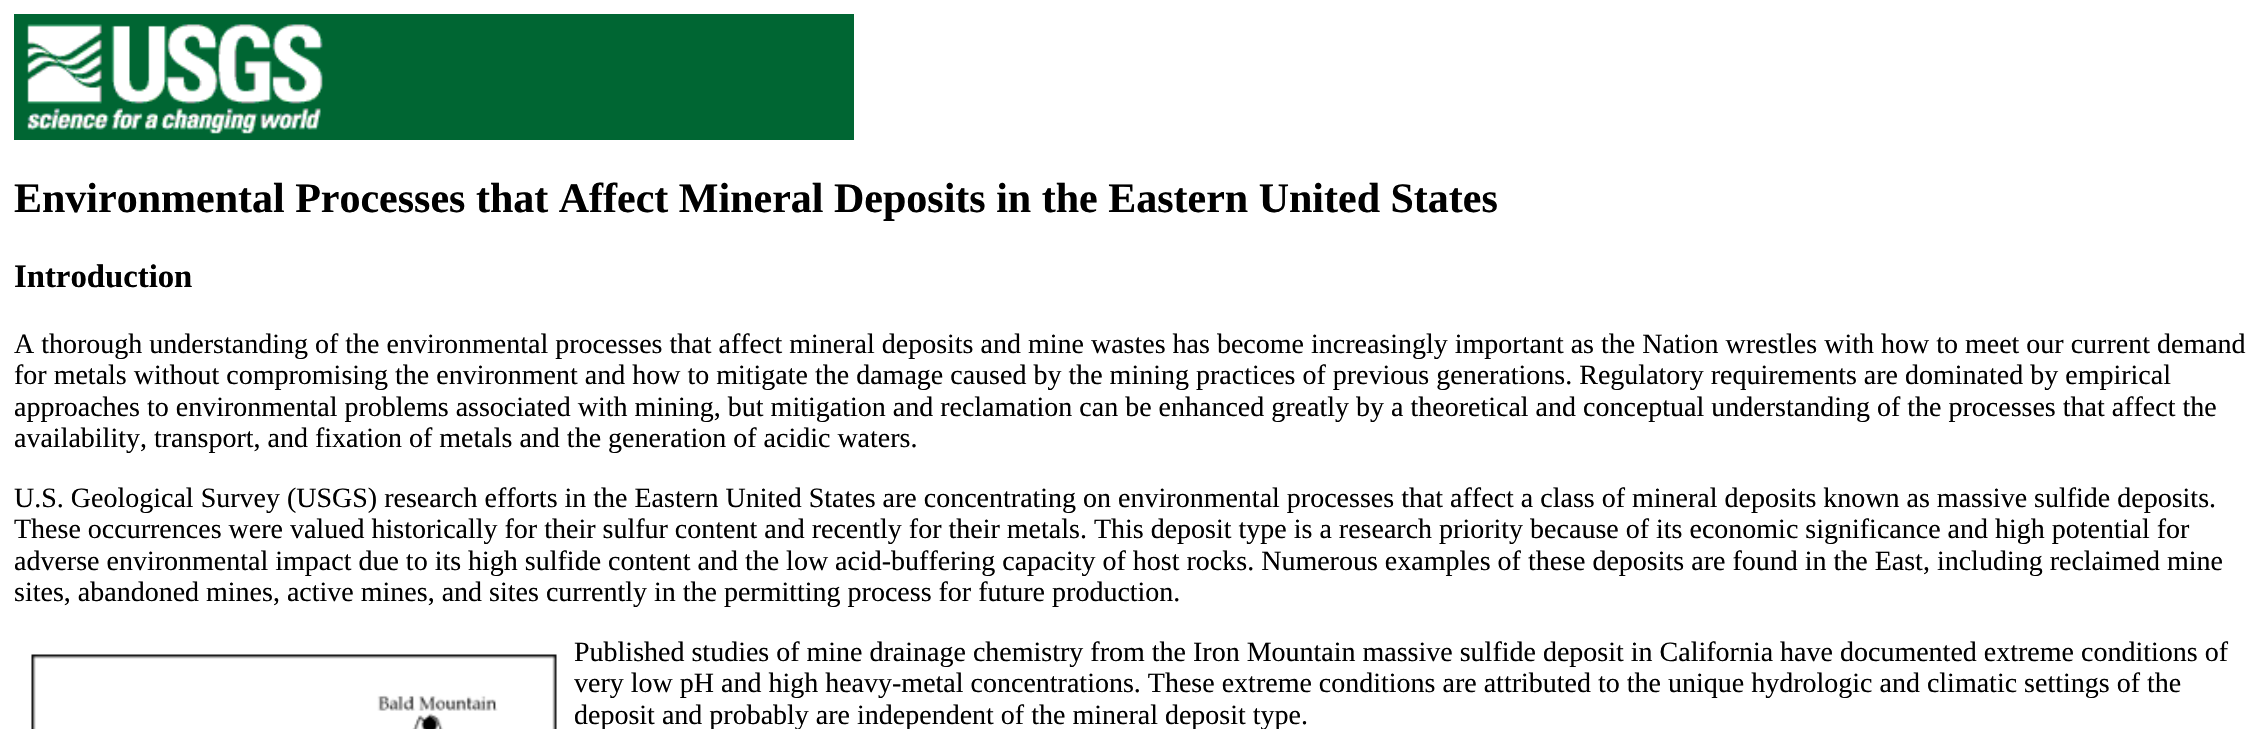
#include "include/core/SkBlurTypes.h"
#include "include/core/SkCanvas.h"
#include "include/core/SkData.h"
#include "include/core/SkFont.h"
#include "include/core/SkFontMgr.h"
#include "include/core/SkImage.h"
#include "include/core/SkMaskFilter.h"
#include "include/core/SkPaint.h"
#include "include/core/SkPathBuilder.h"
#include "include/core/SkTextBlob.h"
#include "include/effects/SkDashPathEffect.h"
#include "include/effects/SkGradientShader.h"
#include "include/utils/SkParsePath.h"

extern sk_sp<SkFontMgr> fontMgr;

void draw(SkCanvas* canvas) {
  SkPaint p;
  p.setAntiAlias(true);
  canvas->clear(SK_ColorWHITE);
  canvas->drawImageRect(SkImages::DeferredFromEncodedData(SkData::MakeFromFileName("images/1.png")), SkRect::MakeLTRB(14, 14, 854, 140), SkSamplingOptions());
  canvas->drawImageRect(SkImages::DeferredFromEncodedData(SkData::MakeFromFileName("images/2.png")), SkRect::MakeLTRB(31, 654, 557, 729), SkSamplingOptions());
  SkFont font1(fontMgr->matchFamilyStyle("Liberation Serif", SkFontStyle::Bold()), 42);
  font1.setSubpixel(true);
  p.setColor(SK_ColorBLACK);
  canvas->drawString("Environmental Processes that Affect Mineral Deposits in the Eastern United States", 14, 212, font1, p);
  SkFont font2(fontMgr->matchFamilyStyle("Liberation Serif", SkFontStyle::Bold()), 32.75f);
  font2.setSubpixel(true);
  canvas->drawString("Introduction", 14, 287, font2, p);
  SkFont font3(fontMgr->matchFamilyStyle("Liberation Serif", SkFontStyle::Normal()), 28);
  font3.setSubpixel(true);
  canvas->drawString("A thorough understanding of the environmental processes that affect mineral deposits and mine wastes has become increasingly important as the Nation wrestles with how to meet our current demand", 14, 353, font3, p);
  canvas->drawString("for metals without compromising the environment and how to mitigate the damage caused by the mining practices of previous generations. Regulatory requirements are dominated by empirical", 14, 384, font3, p);
  canvas->drawString("approaches to environmental problems associated with mining, but mitigation and reclamation can be enhanced greatly by a theoretical and conceptual understanding of the processes that affect the", 14, 416, font3, p);
  canvas->drawString("availability, transport, and fixation of metals and the generation of acidic waters.", 14, 447, font3, p);
  canvas->drawString("U.S. Geological Survey (USGS) research efforts in the Eastern United States are concentrating on environmental processes that affect a class of mineral deposits known as massive sulfide deposits.", 14, 507, font3, p);
  canvas->drawString("These occurrences were valued historically for their sulfur content and recently for their metals. This deposit type is a research priority because of its economic significance and high potential for", 14, 538, font3, p);
  canvas->drawString("adverse environmental impact due to its high sulfide content and the low acid-buffering capacity of host rocks. Numerous examples of these deposits are found in the East, including reclaimed mine", 14, 570, font3, p);
  canvas->drawString("sites, abandoned mines, active mines, and sites currently in the permitting process for future production.", 14, 601, font3, p);
  canvas->drawString("Published studies of mine drainage chemistry from the Iron Mountain massive sulfide deposit in California have documented extreme conditions of", 574, 661, font3, p);
  canvas->drawString("very low pH and high heavy-metal concentrations. These extreme conditions are attributed to the unique hydrologic and climatic settings of the", 574, 692, font3, p);
  canvas->drawString("deposit and probably are independent of the mineral deposit type.", 574, 724, font3, p);
}
